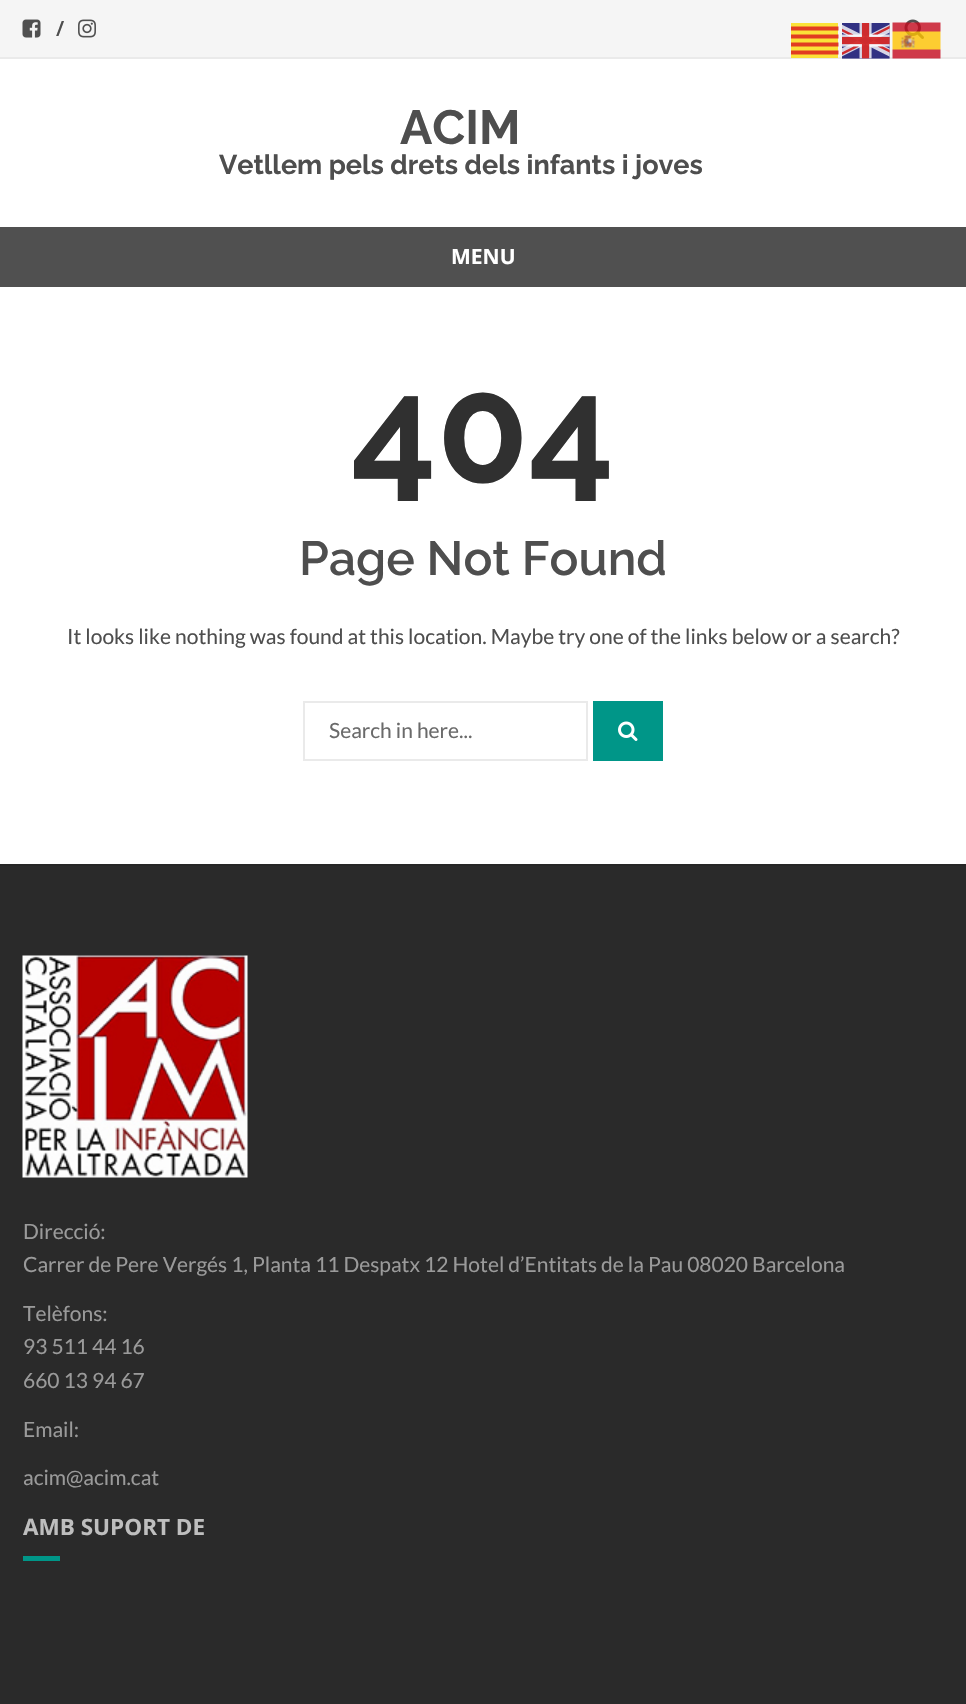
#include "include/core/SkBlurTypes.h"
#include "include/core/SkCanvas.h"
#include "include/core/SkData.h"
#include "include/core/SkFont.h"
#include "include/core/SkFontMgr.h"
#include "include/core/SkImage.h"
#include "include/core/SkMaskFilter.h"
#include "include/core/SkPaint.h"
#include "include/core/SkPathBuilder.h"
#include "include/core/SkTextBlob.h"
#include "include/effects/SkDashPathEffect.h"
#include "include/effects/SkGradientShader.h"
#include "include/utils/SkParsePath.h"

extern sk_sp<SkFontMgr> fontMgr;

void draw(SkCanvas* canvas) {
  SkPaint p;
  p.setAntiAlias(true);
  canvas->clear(SK_ColorWHITE);
  p.setColor(SkColorSetRGB(245, 245, 245));
  canvas->drawRect(SkRect::MakeLTRB(0, 0, 966, 57), p);
  p.setColor(SkColorSetRGB(234, 234, 234));
  canvas->drawRect(SkRect::MakeLTRB(0, 57, 966, 59), p);
  canvas->drawImageRect(SkImages::DeferredFromEncodedData(SkData::MakeFromFileName("images/1.png")), SkRect::MakeLTRB(22, 19, 41, 38), SkSamplingOptions());
  canvas->drawImageRect(SkImages::DeferredFromEncodedData(SkData::MakeFromFileName("images/2.png")), SkRect::MakeLTRB(78, 19, 96, 38), SkSamplingOptions());
  canvas->drawImageRect(SkImages::DeferredFromEncodedData(SkData::MakeFromFileName("images/3.png")), SkRect::MakeLTRB(904, 19, 924, 39), SkSamplingOptions());
  p.setColor(SkColorSetRGB(80, 80, 80));
  canvas->drawRect(SkRect::MakeLTRB(0, 227, 966, 287), p);
  p.setStyle(SkPaint::kStroke_Style);
  p.setStrokeWidth(2);
  p.setColor(SkColorSetRGB(234, 234, 234));
  canvas->drawRect(SkRect::MakeLTRB(304, 702, 587, 760), p);
  p.setStyle(SkPaint::kFill_Style);
  p.setColor(SkColorSetRGB(0, 150, 136));
  canvas->drawRect(SkRect::MakeLTRB(593, 701, 663, 761), p);
  canvas->drawImageRect(SkImages::DeferredFromEncodedData(SkData::MakeFromFileName("images/4.png")), SkRect::MakeLTRB(618, 721, 638, 741), SkSamplingOptions());
  p.setColor(SkColorSetRGB(42, 42, 42));
  canvas->drawRect(SkRect::MakeLTRB(0, 866, 966, 1704), p);
  p.setColor(SkColorSetRGB(38, 38, 38));
  canvas->drawRect(SkRect::MakeLTRB(0, 864, 966, 866), p);
  canvas->drawImageRect(SkImages::DeferredFromEncodedData(SkData::MakeFromFileName("images/5.png")), SkRect::MakeLTRB(22, 955, 248, 1178), SkSamplingOptions());
  p.setColor(SkColorSetRGB(0, 150, 136));
  canvas->drawRect(SkRect::MakeLTRB(23, 1556, 60, 1561), p);
  p.setColor(SkColorSetARGB(204, 252, 221, 9));
  canvas->drawRect(SkRect::MakeLTRB(791, 23, 838, 58), p);
  canvas->drawImageRect(SkImages::DeferredFromEncodedData(SkData::MakeFromFileName("images/6.png")), SkRect::MakeLTRB(842, 23, 890, 59), SkSamplingOptions());
  canvas->drawImageRect(SkImages::DeferredFromEncodedData(SkData::MakeFromFileName("images/7.png")), SkRect::MakeLTRB(892, 22, 941, 59), SkSamplingOptions());
  canvas->save();
  canvas->clipRect(SkRect::MakeLTRB(791, 23, 839, 59));
  p.setStyle(SkPaint::kStroke_Style);
  p.setStrokeWidth(3.8f);
  p.setColor(SkColorSetARGB(204, 218, 18, 26));
  canvas->drawPath(SkPathBuilder().moveTo(790.5f, 28.5f).lineTo(838.5f, 28.5f).moveTo(838.5f, 36.5f).lineTo(790.5f, 36.5f).moveTo(790.5f, 44.5f).lineTo(838.5f, 44.5f).moveTo(838.5f, 52.5f).lineTo(790.5f, 52.5f).detach(), p);
  canvas->restore();
  SkFont font1(fontMgr->matchFamilyStyle("Open Sans", SkFontStyle(600, SkFontStyle::kNormal_Width, SkFontStyle::kUpright_Slant)), 21);
  font1.setSubpixel(true);
  p.setStyle(SkPaint::kFill_Style);
  p.setColor(SkColorSetRGB(78, 78, 78));
  canvas->drawString("/", 56, 36, font1, p);
  SkFont font2(fontMgr->matchFamilyStyle("Raleway", SkFontStyle::Bold()), 48);
  font2.setSubpixel(true);
  canvas->drawString("ACIM", 400, 144, font2, p);
  SkFont font3(fontMgr->matchFamilyStyle("Raleway", SkFontStyle::Bold()), 27);
  font3.setSubpixel(true);
  canvas->drawString("Vetllem pels drets dels infants i joves", 219, 174, font3, p);
  SkFont font4(fontMgr->matchFamilyStyle("Open Sans", SkFontStyle::Bold()), 21);
  font4.setSubpixel(true);
  p.setColor(SK_ColorWHITE);
  canvas->drawString("MENU", 451, 264, font4, p);
  SkFont font5(fontMgr->matchFamilyStyle("Raleway", SkFontStyle::Bold()), 150);
  font5.setSubpixel(true);
  p.setColor(SkColorSetRGB(48, 48, 48));
  canvas->drawString("404", 351, 482, font5, p);
  SkFont font6(fontMgr->matchFamilyStyle("Raleway", SkFontStyle(600, SkFontStyle::kNormal_Width, SkFontStyle::kUpright_Slant)), 48);
  font6.setSubpixel(true);
  p.setColor(SkColorSetRGB(78, 78, 78));
  canvas->drawString("Page Not Found", 299, 575, font6, p);
  SkFont font7(fontMgr->matchFamilyStyle("Lato", SkFontStyle::Normal()), 21);
  font7.setSubpixel(true);
  canvas->drawString("It looks like nothing was found at this location. Maybe try one of the links below or a search?", 67, 644, font7, p);
  p.setColor(SkColorSetRGB(106, 106, 106));
  canvas->drawString("Search in here...", 329, 738, font7, p);
  p.setColor(SkColorSetRGB(154, 154, 154));
  canvas->drawString("Direcció:", 23, 1239, font7, p);
  canvas->drawString("Carrer de Pere Vergés 1, Planta 11 Despatx 12 Hotel d’Entitats de la Pau 08020 Barcelona", 23, 1272, font7, p);
  canvas->drawString("Telèfons:", 23, 1321, font7, p);
  canvas->drawString("93 511 44 16", 23, 1354, font7, p);
  canvas->drawString("660 13 94 67", 23, 1388, font7, p);
  canvas->drawString("Email:", 23, 1437, font7, p);
  canvas->drawString("acim@acim.cat", 23, 1485, font7, p);
  SkFont font8(fontMgr->matchFamilyStyle("Open Sans", SkFontStyle::Bold()), 22.5f);
  font8.setSubpixel(true);
  p.setColor(SkColorSetRGB(190, 190, 190));
  canvas->drawString("AMB SUPORT DE", 23, 1535, font8, p);
}
